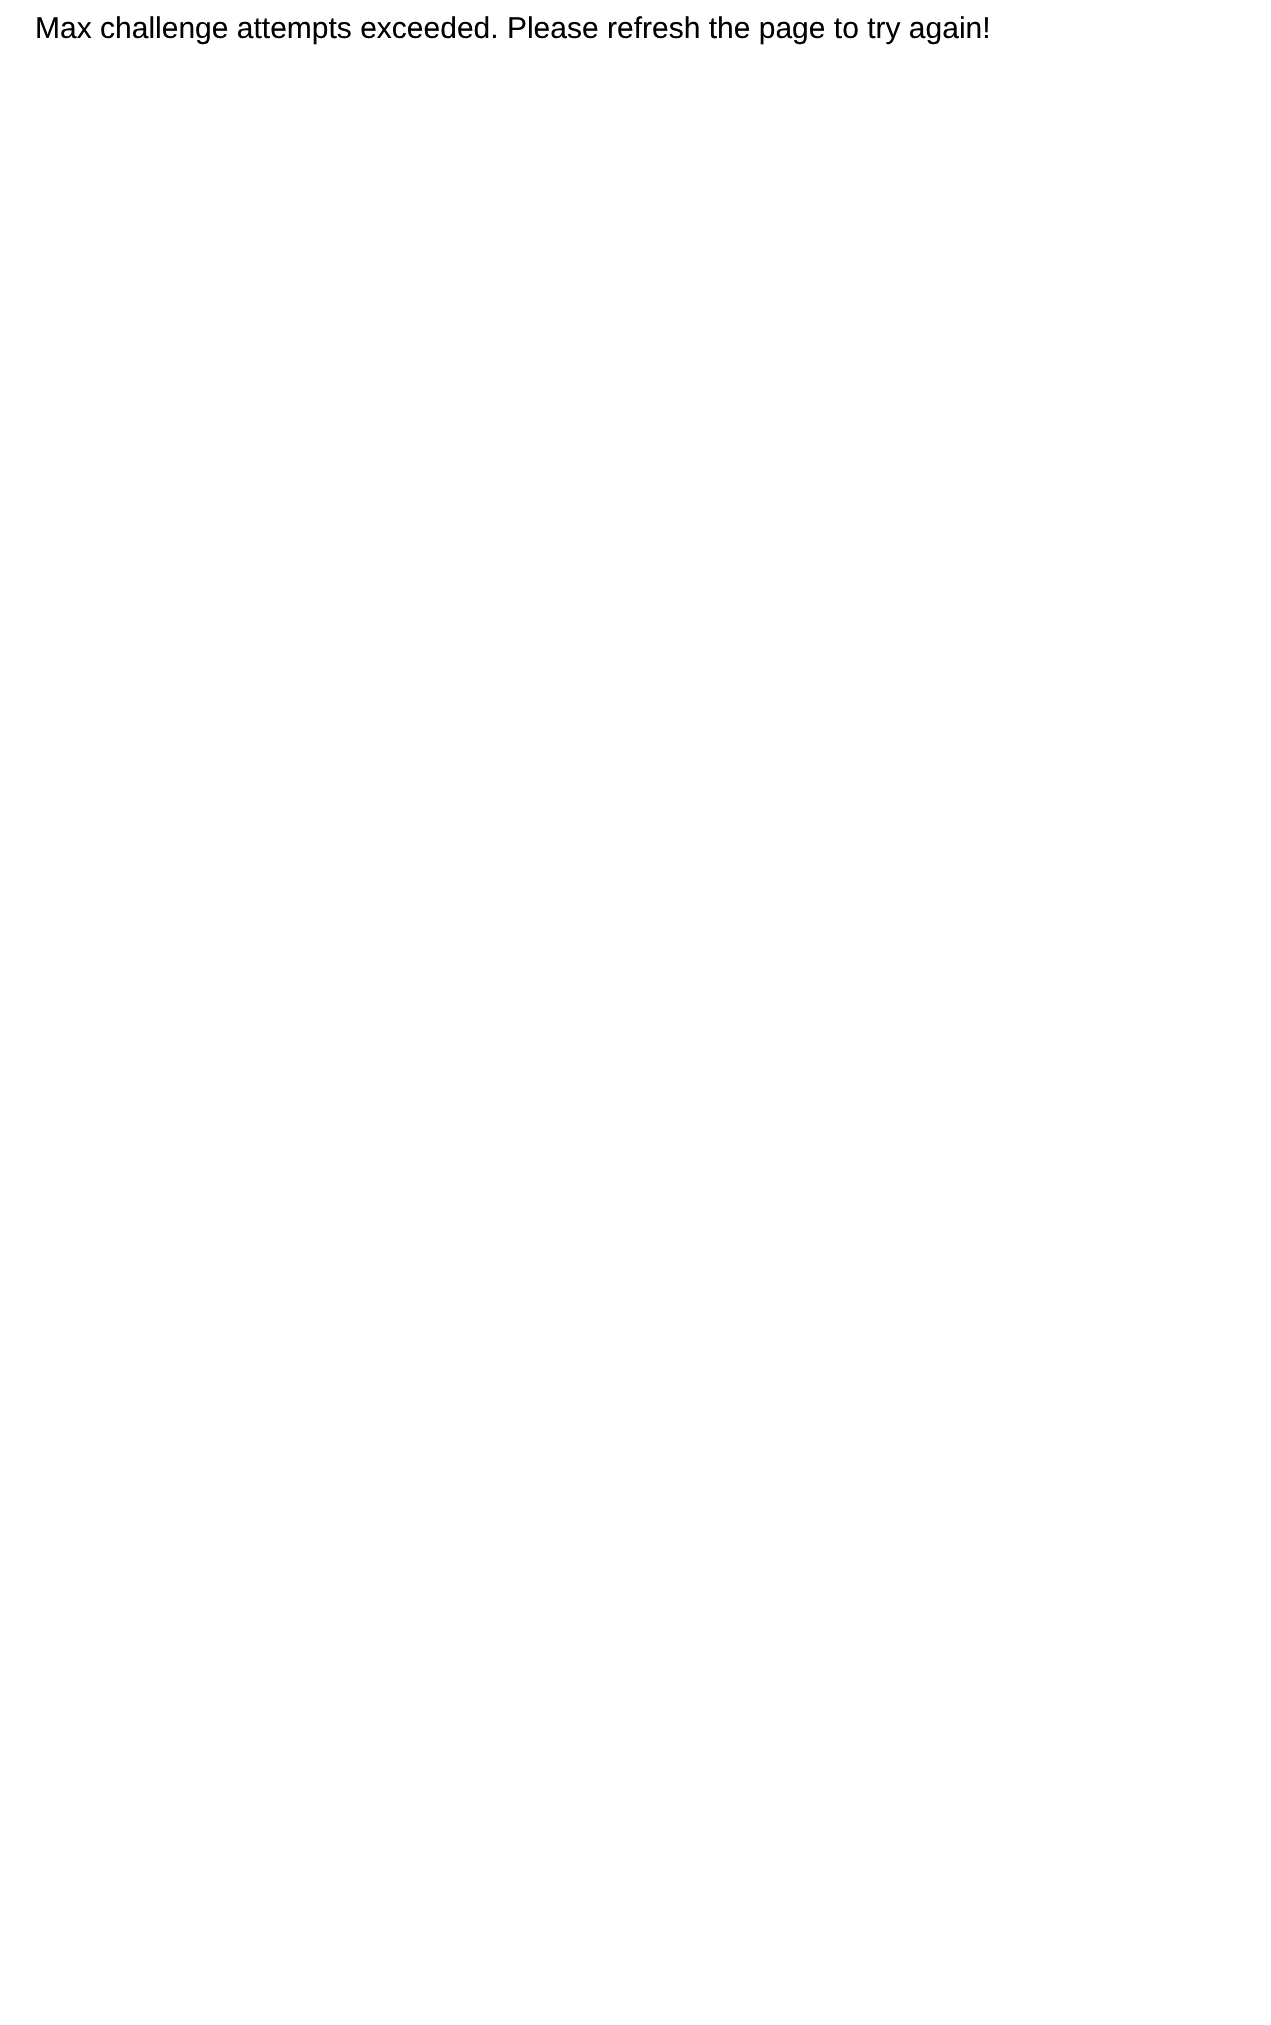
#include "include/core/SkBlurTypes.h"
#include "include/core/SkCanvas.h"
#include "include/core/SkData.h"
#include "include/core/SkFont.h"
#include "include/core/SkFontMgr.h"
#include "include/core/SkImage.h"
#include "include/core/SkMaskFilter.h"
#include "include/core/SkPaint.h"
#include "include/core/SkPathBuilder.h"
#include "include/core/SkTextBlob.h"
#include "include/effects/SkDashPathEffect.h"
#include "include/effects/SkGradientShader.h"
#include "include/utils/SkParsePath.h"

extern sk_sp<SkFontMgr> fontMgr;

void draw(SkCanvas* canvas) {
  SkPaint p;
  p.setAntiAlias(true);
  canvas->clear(SK_ColorWHITE);
  SkFont font1(fontMgr->matchFamilyStyle("Liberation Sans", SkFontStyle::Normal()), 30);
  font1.setSubpixel(true);
  p.setColor(SK_ColorBLACK);
  canvas->drawString("Max challenge attempts exceeded. Please refresh the page to try again!", 35, 38, font1, p);
}
